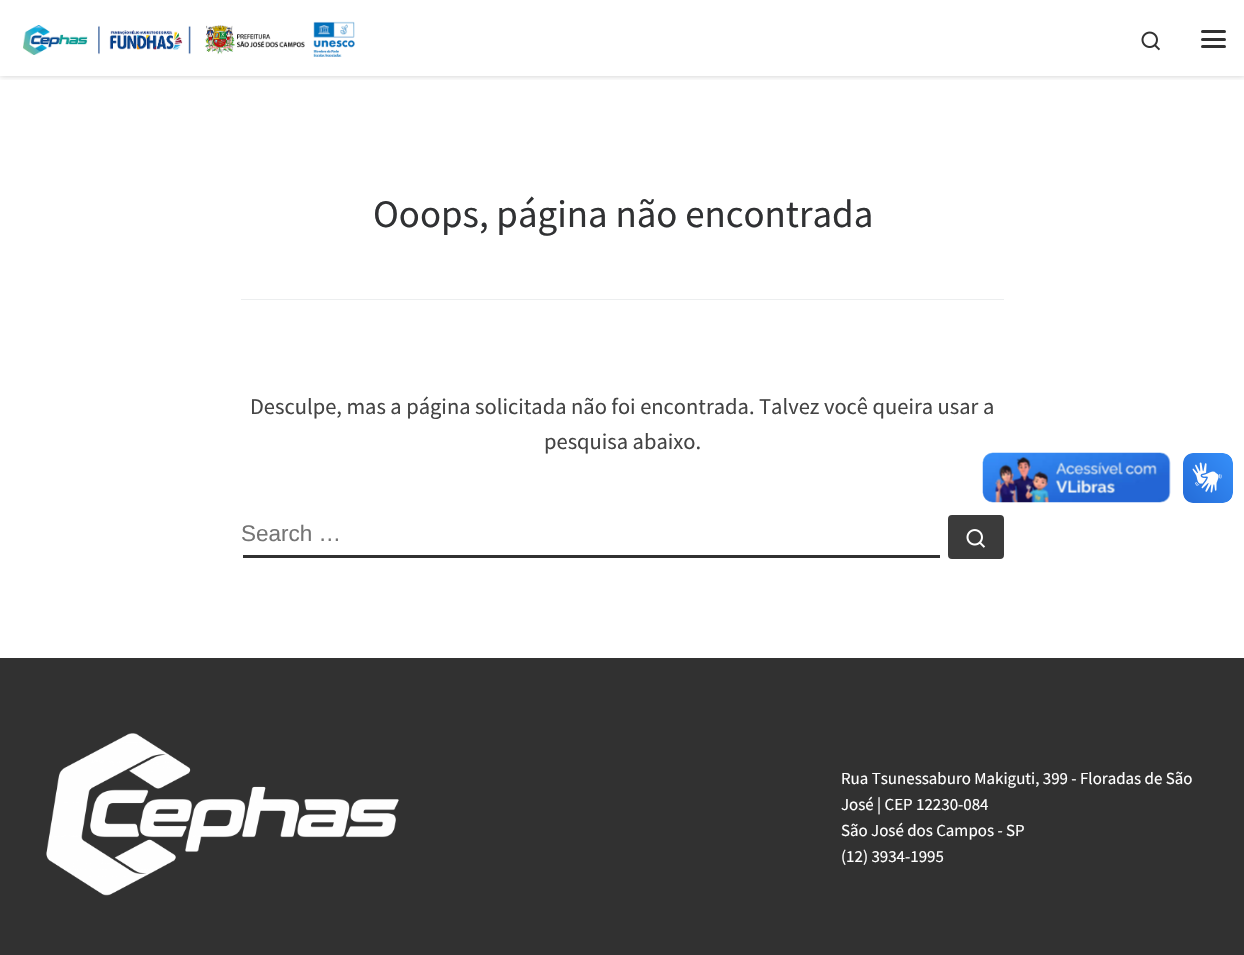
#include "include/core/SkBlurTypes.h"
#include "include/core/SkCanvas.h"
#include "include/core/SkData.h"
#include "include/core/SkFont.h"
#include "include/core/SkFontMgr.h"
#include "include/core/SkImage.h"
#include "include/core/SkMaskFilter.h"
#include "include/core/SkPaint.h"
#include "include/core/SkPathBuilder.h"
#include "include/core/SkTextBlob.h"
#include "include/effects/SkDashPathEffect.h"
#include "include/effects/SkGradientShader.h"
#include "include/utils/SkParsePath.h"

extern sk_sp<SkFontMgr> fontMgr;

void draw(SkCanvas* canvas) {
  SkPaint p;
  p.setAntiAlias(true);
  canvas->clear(SK_ColorWHITE);
  canvas->save();
  canvas->clipRect(SkRect::MakeLTRB(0, 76, 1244, 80));
  p.setColor(SkColorSetARGB(51, 0, 0, 0));
  p.setMaskFilter(SkMaskFilter::MakeBlur(kNormal_SkBlurStyle, 3));
  canvas->drawRect(SkRect::MakeLTRB(0, 0, 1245, 76), p);
  p.setMaskFilter(nullptr);
  canvas->restore();
  canvas->drawImageRect(SkImages::DeferredFromEncodedData(SkData::MakeFromFileName("images/1.png")), SkRect::MakeLTRB(23, 21, 355, 57), SkSamplingOptions());
  canvas->drawImageRect(SkImages::DeferredFromEncodedData(SkData::MakeFromFileName("images/2.png")), SkRect::MakeLTRB(1141, 31, 1160, 51), SkSamplingOptions());
  p.setColor(SkColorSetRGB(49, 49, 49));
  canvas->drawRoundRect(SkRect::MakeLTRB(1201, 30, 1226, 33), 1.5f, 1.5f, p);
  canvas->drawRoundRect(SkRect::MakeLTRB(1201, 38, 1226, 41), 1.5f, 1.5f, p);
  canvas->drawRoundRect(SkRect::MakeLTRB(1201, 45, 1226, 48), 1.5f, 1.5f, p);
  p.setColor(SkColorSetRGB(236, 238, 239));
  canvas->drawRect(SkRect::MakeLTRB(241, 299, 1004, 300), p);
  p.setColor(SkColorSetRGB(49, 49, 49));
  canvas->drawRect(SkRect::MakeLTRB(243, 555, 940, 558), p);
  p.setColor(SkColorSetRGB(59, 59, 59));
  canvas->drawRoundRect(SkRect::MakeLTRB(949.5f, 516.5f, 1002.5f, 557.5f), 2.5f, 2.5f, p);
  p.setStyle(SkPaint::kStroke_Style);
  p.setStrokeWidth(3);
  canvas->drawRoundRect(SkRect::MakeLTRB(949.5f, 516.5f, 1002.5f, 557.5f), 2.5f, 2.5f, p);
  canvas->drawImageRect(SkImages::DeferredFromEncodedData(SkData::MakeFromFileName("images/3.png")), SkRect::MakeLTRB(966, 529, 986, 548), SkSamplingOptions());
  p.setStyle(SkPaint::kFill_Style);
  p.setColor(SkColorSetRGB(49, 49, 49));
  canvas->drawRect(SkRect::MakeLTRB(0, 658, 1244, 955), p);
  canvas->drawImageRect(SkImages::DeferredFromEncodedData(SkData::MakeFromFileName("images/4.png")), SkRect::MakeLTRB(46, 733, 399, 896), SkSamplingOptions());
  canvas->drawImageRect(SkImages::DeferredFromEncodedData(SkData::MakeFromFileName("images/5.png")), SkRect::MakeLTRB(982, 452, 1171, 503), SkSamplingOptions());
  canvas->drawImageRect(SkImages::DeferredFromEncodedData(SkData::MakeFromFileName("images/6.png")), SkRect::MakeLTRB(1183, 453, 1233, 503), SkSamplingOptions());
  SkFont font1(fontMgr->matchFamilyStyle("Source Sans Pro", SkFontStyle::Normal()), 38.9f);
  font1.setSubpixel(true);
  p.setColor(SkColorSetRGB(48, 49, 51));
  canvas->drawString("Ooops, página não encontrada", 373, 227, font1, p);
  SkFont font2(fontMgr->matchFamilyStyle("Source Sans Pro", SkFontStyle::Normal()), 22.5f);
  font2.setSubpixel(true);
  p.setColor(SkColorSetRGB(68, 68, 68));
  canvas->drawString("Desculpe, mas a página solicitada não foi encontrada. Talvez você queira usar a", 250, 414, font2, p);
  canvas->drawString("pesquisa abaixo.", 544, 449, font2, p);
  SkFont font3(fontMgr->matchFamilyStyle("Liberation Sans", SkFontStyle::Normal()), 22.5f);
  font3.setSubpixel(true);
  p.setColor(SkColorSetRGB(117, 117, 117));
  canvas->drawString("Search …", 241, 541, font3, p);
  SkFont font4(fontMgr->matchFamilyStyle("Source Sans Pro", SkFontStyle::Normal()), 16.9f);
  font4.setSubpixel(true);
  p.setColor(SK_ColorWHITE);
  canvas->drawString("Rua Tsunessaburo Makiguti, 399 - Floradas de São", 841, 784, font4, p);
  canvas->drawString("José | CEP 12230-084", 841, 810, font4, p);
  canvas->drawString("São José dos Campos - SP", 841, 836, font4, p);
  canvas->drawString("(12) 3934-1995", 841, 862, font4, p);
}
